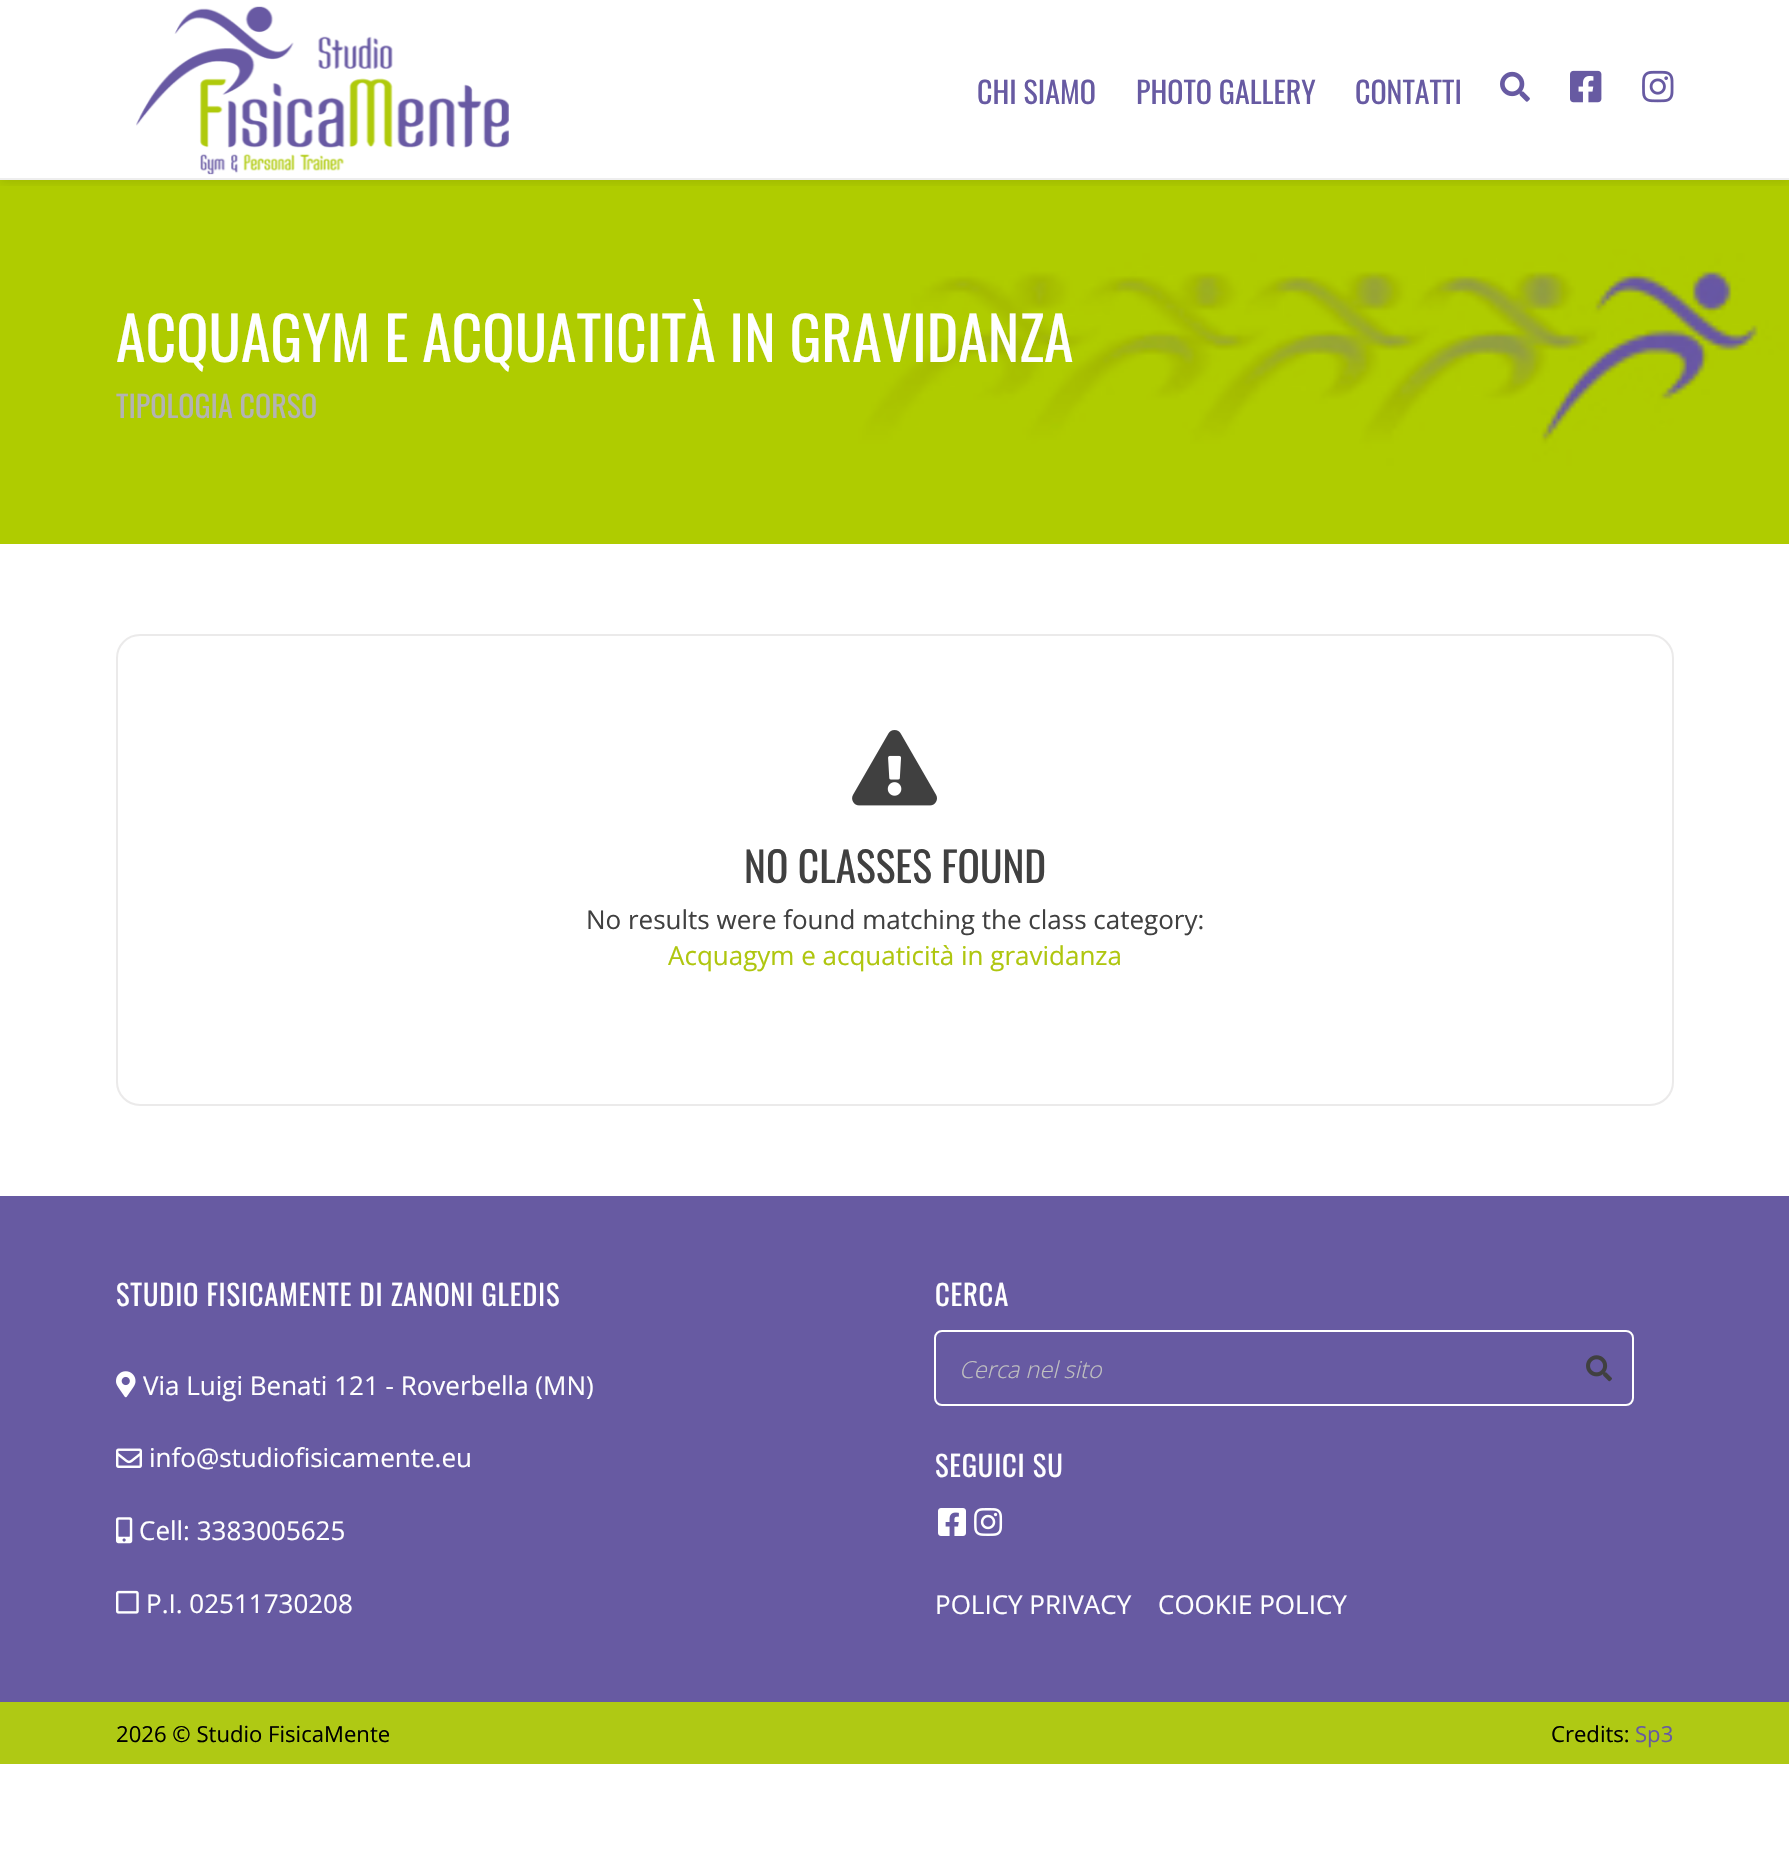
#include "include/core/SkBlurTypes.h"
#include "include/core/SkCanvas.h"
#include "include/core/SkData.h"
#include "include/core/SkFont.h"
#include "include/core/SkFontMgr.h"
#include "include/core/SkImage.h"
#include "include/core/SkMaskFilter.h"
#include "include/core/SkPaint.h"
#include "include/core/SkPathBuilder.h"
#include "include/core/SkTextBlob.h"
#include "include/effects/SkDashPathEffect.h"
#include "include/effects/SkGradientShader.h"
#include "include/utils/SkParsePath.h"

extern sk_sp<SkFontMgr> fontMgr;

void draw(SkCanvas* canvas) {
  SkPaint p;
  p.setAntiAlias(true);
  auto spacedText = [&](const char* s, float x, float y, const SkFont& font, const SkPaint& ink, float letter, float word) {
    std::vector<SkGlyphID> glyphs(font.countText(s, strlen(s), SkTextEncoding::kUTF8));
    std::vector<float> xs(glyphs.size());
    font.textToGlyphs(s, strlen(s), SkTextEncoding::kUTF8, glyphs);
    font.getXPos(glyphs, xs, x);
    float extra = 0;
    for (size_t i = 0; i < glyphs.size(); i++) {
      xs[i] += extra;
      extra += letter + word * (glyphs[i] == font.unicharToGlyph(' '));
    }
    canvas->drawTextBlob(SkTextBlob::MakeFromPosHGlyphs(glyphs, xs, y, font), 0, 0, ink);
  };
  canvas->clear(SK_ColorWHITE);
  canvas->drawImageRect(SkImages::DeferredFromEncodedData(SkData::MakeFromFileName("images/5.png")), SkRect::MakeLTRB(0, 180, 1789, 544), SkSamplingOptions());
  canvas->save();
  canvas->clipRect(SkRect::MakeLTRB(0, 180, 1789, 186));
  p.setColor(SkColorSetARGB(26, 0, 0, 0));
  p.setMaskFilter(SkMaskFilter::MakeBlur(kNormal_SkBlurStyle, 5));
  canvas->drawRect(SkRect::MakeLTRB(0, 2, 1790, 182), p);
  p.setMaskFilter(nullptr);
  canvas->restore();
  p.setColor(SkColorSetRGB(238, 238, 238));
  canvas->drawRect(SkRect::MakeLTRB(0, 178, 1789, 180), p);
  canvas->drawImageRect(SkImages::DeferredFromEncodedData(SkData::MakeFromFileName("images/1.png")), SkRect::MakeLTRB(136, 6, 509, 175), SkSamplingOptions());
  canvas->drawImageRect(SkImages::DeferredFromEncodedData(SkData::MakeFromFileName("images/2.png")), SkRect::MakeLTRB(1500, 71, 1530, 102), SkSamplingOptions());
  canvas->drawImageRect(SkImages::DeferredFromEncodedData(SkData::MakeFromFileName("images/3.png")), SkRect::MakeLTRB(1570, 70, 1602, 103), SkSamplingOptions());
  canvas->drawImageRect(SkImages::DeferredFromEncodedData(SkData::MakeFromFileName("images/4.png")), SkRect::MakeLTRB(1642, 70, 1674, 103), SkSamplingOptions());
  p.setStyle(SkPaint::kStroke_Style);
  p.setStrokeWidth(2);
  p.setColor(SkColorSetRGB(235, 234, 234));
  canvas->drawRoundRect(SkRect::MakeLTRB(117, 635, 1673, 1105), 23, 23, p);
  canvas->drawImageRect(SkImages::DeferredFromEncodedData(SkData::MakeFromFileName("images/6.png")), SkRect::MakeLTRB(852, 730, 937, 806), SkSamplingOptions());
  p.setStyle(SkPaint::kFill_Style);
  p.setColor(SkColorSetRGB(103, 90, 162));
  canvas->drawRect(SkRect::MakeLTRB(0, 1196, 1789, 1702), p);
  canvas->drawImageRect(SkImages::DeferredFromEncodedData(SkData::MakeFromFileName("images/7.png")), SkRect::MakeLTRB(116, 1371, 136, 1398), SkSamplingOptions());
  canvas->drawImageRect(SkImages::DeferredFromEncodedData(SkData::MakeFromFileName("images/8.png")), SkRect::MakeLTRB(116, 1448, 142, 1468), SkSamplingOptions());
  canvas->drawImageRect(SkImages::DeferredFromEncodedData(SkData::MakeFromFileName("images/9.png")), SkRect::MakeLTRB(116, 1517, 133, 1544), SkSamplingOptions());
  canvas->drawImageRect(SkImages::DeferredFromEncodedData(SkData::MakeFromFileName("images/10.png")), SkRect::MakeLTRB(116, 1590, 139, 1614), SkSamplingOptions());
  p.setStyle(SkPaint::kStroke_Style);
  p.setColor(SK_ColorWHITE);
  canvas->drawRoundRect(SkRect::MakeLTRB(935, 1331, 1633, 1405), 7, 7, p);
  canvas->drawImageRect(SkImages::DeferredFromEncodedData(SkData::MakeFromFileName("images/11.png")), SkRect::MakeLTRB(1586, 1355, 1612, 1382), SkSamplingOptions());
  canvas->drawImageRect(SkImages::DeferredFromEncodedData(SkData::MakeFromFileName("images/12.png")), SkRect::MakeLTRB(938, 1508, 966, 1536), SkSamplingOptions());
  canvas->drawImageRect(SkImages::DeferredFromEncodedData(SkData::MakeFromFileName("images/13.png")), SkRect::MakeLTRB(974, 1508, 1003, 1536), SkSamplingOptions());
  p.setStyle(SkPaint::kFill_Style);
  p.setColor(SkColorSetRGB(175, 201, 20));
  canvas->drawRect(SkRect::MakeLTRB(0, 1702, 1789, 1764), p);
  SkFont font1(fontMgr->matchFamilyStyle("Oswald", SkFontStyle::Normal()), 30);
  font1.setSubpixel(true);
  p.setColor(SkColorSetRGB(103, 90, 162));
  canvas->drawString("CHI SIAMO", 977, 104, font1, p);
  canvas->drawString("PHOTO GALLERY", 1136, 104, font1, p);
  canvas->drawString("CONTATTI", 1355, 104, font1, p);
  SkFont font2(fontMgr->matchFamilyStyle("Oswald", SkFontStyle::Normal()), 59.75f);
  font2.setSubpixel(true);
  p.setColor(SK_ColorWHITE);
  canvas->drawString("ACQUAGYM E ACQUATICITÀ IN GRAVIDANZA", 116, 362, font2, p);
  p.setColor(SkColorSetRGB(179, 179, 179));
  canvas->drawString("TIPOLOGIA CORSO", 116, 418, font1, p);
  SkFont font3(fontMgr->matchFamilyStyle("Oswald", SkFontStyle::Normal()), 41.5f);
  font3.setSubpixel(true);
  p.setColor(SkColorSetRGB(64, 64, 64));
  canvas->drawString("NO CLASSES FOUND", 744, 883, font3, p);
  SkFont font4(fontMgr->matchFamilyStyle("Open Sans", SkFontStyle::Normal()), 26);
  font4.setSubpixel(true);
  canvas->drawString("No results were found matching the class category:", 586, 929, font4, p);
  p.setColor(SkColorSetRGB(175, 198, 15));
  canvas->drawString("Acquagym e acquaticità in gravidanza", 668, 965, font4, p);
  SkFont font5(fontMgr->matchFamilyStyle("Oswald", SkFontStyle::Normal()), 28.6f);
  font5.setSubpixel(true);
  p.setColor(SK_ColorWHITE);
  spacedText("STUDIO FISICAMENTE DI ZANONI GLEDIS", 116, 1306, font5, p, 0.8f, 0);
  canvas->drawString("Via Luigi Benati 121 - Roverbella (MN)", 143, 1395, font4, p);
  canvas->drawString("info@studiofisicamente.eu", 149, 1467, font4, p);
  canvas->drawString("Cell: 3383005625", 139, 1540, font4, p);
  canvas->drawString("P.I. 02511730208", 146, 1613, font4, p);
  spacedText("CERCA", 935, 1306, font5, p, 0.8f, 0);
  SkFont font6(fontMgr->matchFamilyStyle("Open Sans", SkFontStyle(300, SkFontStyle::kNormal_Width, SkFontStyle::kItalic_Slant)), 23.5f);
  font6.setSubpixel(true);
  p.setColor(SkColorSetRGB(192, 192, 192));
  canvas->drawString("Cerca nel sito", 959, 1378, font6, p);
  p.setColor(SK_ColorWHITE);
  spacedText("SEGUICI SU", 935, 1477, font5, p, 0.8f, 0);
  canvas->drawString("POLICY PRIVACY", 935, 1614, font4, p);
  canvas->drawString("COOKIE POLICY", 1158, 1614, font4, p);
  SkFont font7(fontMgr->matchFamilyStyle("Open Sans", SkFontStyle::Normal()), 22.1f);
  font7.setSubpixel(true);
  p.setColor(SK_ColorBLACK);
  canvas->drawString("2026 © Studio FisicaMente", 116, 1742, font7, p);
  canvas->drawString("Credits:", 1551, 1742, font7, p);
  p.setColor(SkColorSetRGB(103, 90, 162));
  canvas->drawString("Sp3", 1635, 1742, font7, p);
}
